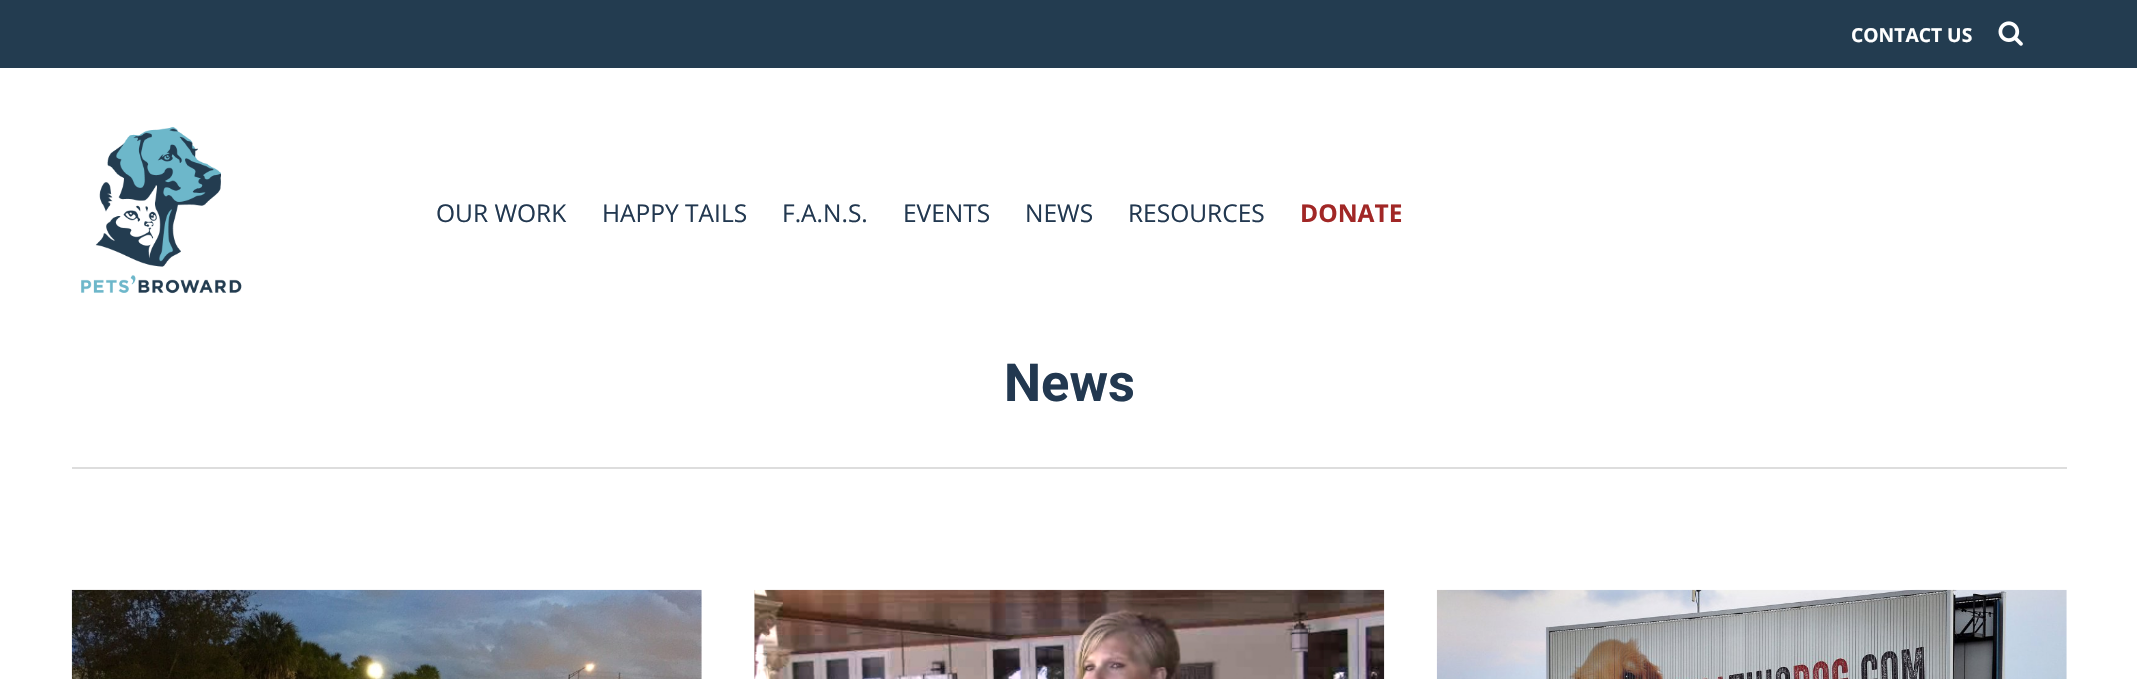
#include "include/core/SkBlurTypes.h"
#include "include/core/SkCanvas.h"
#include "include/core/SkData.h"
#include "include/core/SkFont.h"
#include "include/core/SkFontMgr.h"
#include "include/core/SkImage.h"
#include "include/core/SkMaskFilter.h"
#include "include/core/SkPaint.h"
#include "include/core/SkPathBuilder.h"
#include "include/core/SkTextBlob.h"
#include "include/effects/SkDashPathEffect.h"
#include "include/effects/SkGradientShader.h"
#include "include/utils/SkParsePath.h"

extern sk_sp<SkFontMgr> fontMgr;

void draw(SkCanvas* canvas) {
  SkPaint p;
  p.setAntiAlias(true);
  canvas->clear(SK_ColorWHITE);
  p.setColor(SkColorSetRGB(35, 60, 80));
  canvas->drawRect(SkRect::MakeLTRB(0, 0, 2137, 68), p);
  canvas->drawImageRect(SkImages::DeferredFromEncodedData(SkData::MakeFromFileName("images/1.png")), SkRect::MakeLTRB(1998, 21, 2023, 46), SkSamplingOptions());
  canvas->drawImageRect(SkImages::DeferredFromEncodedData(SkData::MakeFromFileName("images/2.png")), SkRect::MakeLTRB(81, 126, 242, 294), SkSamplingOptions());
  p.setColor(SkColorSetRGB(221, 221, 221));
  canvas->drawRect(SkRect::MakeLTRB(72, 467, 2067, 469), p);
  canvas->drawImageRect(SkImages::DeferredFromEncodedData(SkData::MakeFromFileName("images/3.png")), SkRect::MakeLTRB(71, 589, 702, 679), SkSamplingOptions());
  canvas->drawImageRect(SkImages::DeferredFromEncodedData(SkData::MakeFromFileName("images/4.png")), SkRect::MakeLTRB(754, 589, 1385, 679), SkSamplingOptions());
  canvas->drawImageRect(SkImages::DeferredFromEncodedData(SkData::MakeFromFileName("images/5.png")), SkRect::MakeLTRB(1436, 589, 2067, 679), SkSamplingOptions());
  SkFont font1(fontMgr->matchFamilyStyle("Open Sans", SkFontStyle::Bold()), 19.25f);
  font1.setSubpixel(true);
  p.setColor(SK_ColorWHITE);
  canvas->drawString("CONTACT US", 1851, 42, font1, p);
  SkFont font2(fontMgr->matchFamilyStyle("Open Sans", SkFontStyle::Normal()), 24.5f);
  font2.setSubpixel(true);
  p.setColor(SkColorSetRGB(34, 56, 80));
  canvas->drawString("OUR WORK", 436, 222, font2, p);
  canvas->drawString("HAPPY TAILS", 602, 222, font2, p);
  canvas->drawString("F.A.N.S.", 782, 222, font2, p);
  canvas->drawString("EVENTS", 903, 222, font2, p);
  canvas->drawString("NEWS", 1025, 222, font2, p);
  canvas->drawString("RESOURCES", 1128, 222, font2, p);
  SkFont font3(fontMgr->matchFamilyStyle("Open Sans", SkFontStyle::Bold()), 24.5f);
  font3.setSubpixel(true);
  p.setColor(SkColorSetRGB(161, 39, 38));
  canvas->drawString("DONATE", 1300, 222, font3, p);
  SkFont font4(fontMgr->matchFamilyStyle("Roboto", SkFontStyle::Bold()), 52.5f);
  font4.setSubpixel(true);
  p.setColor(SkColorSetRGB(34, 56, 80));
  canvas->drawString("News", 1004, 401, font4, p);
}
